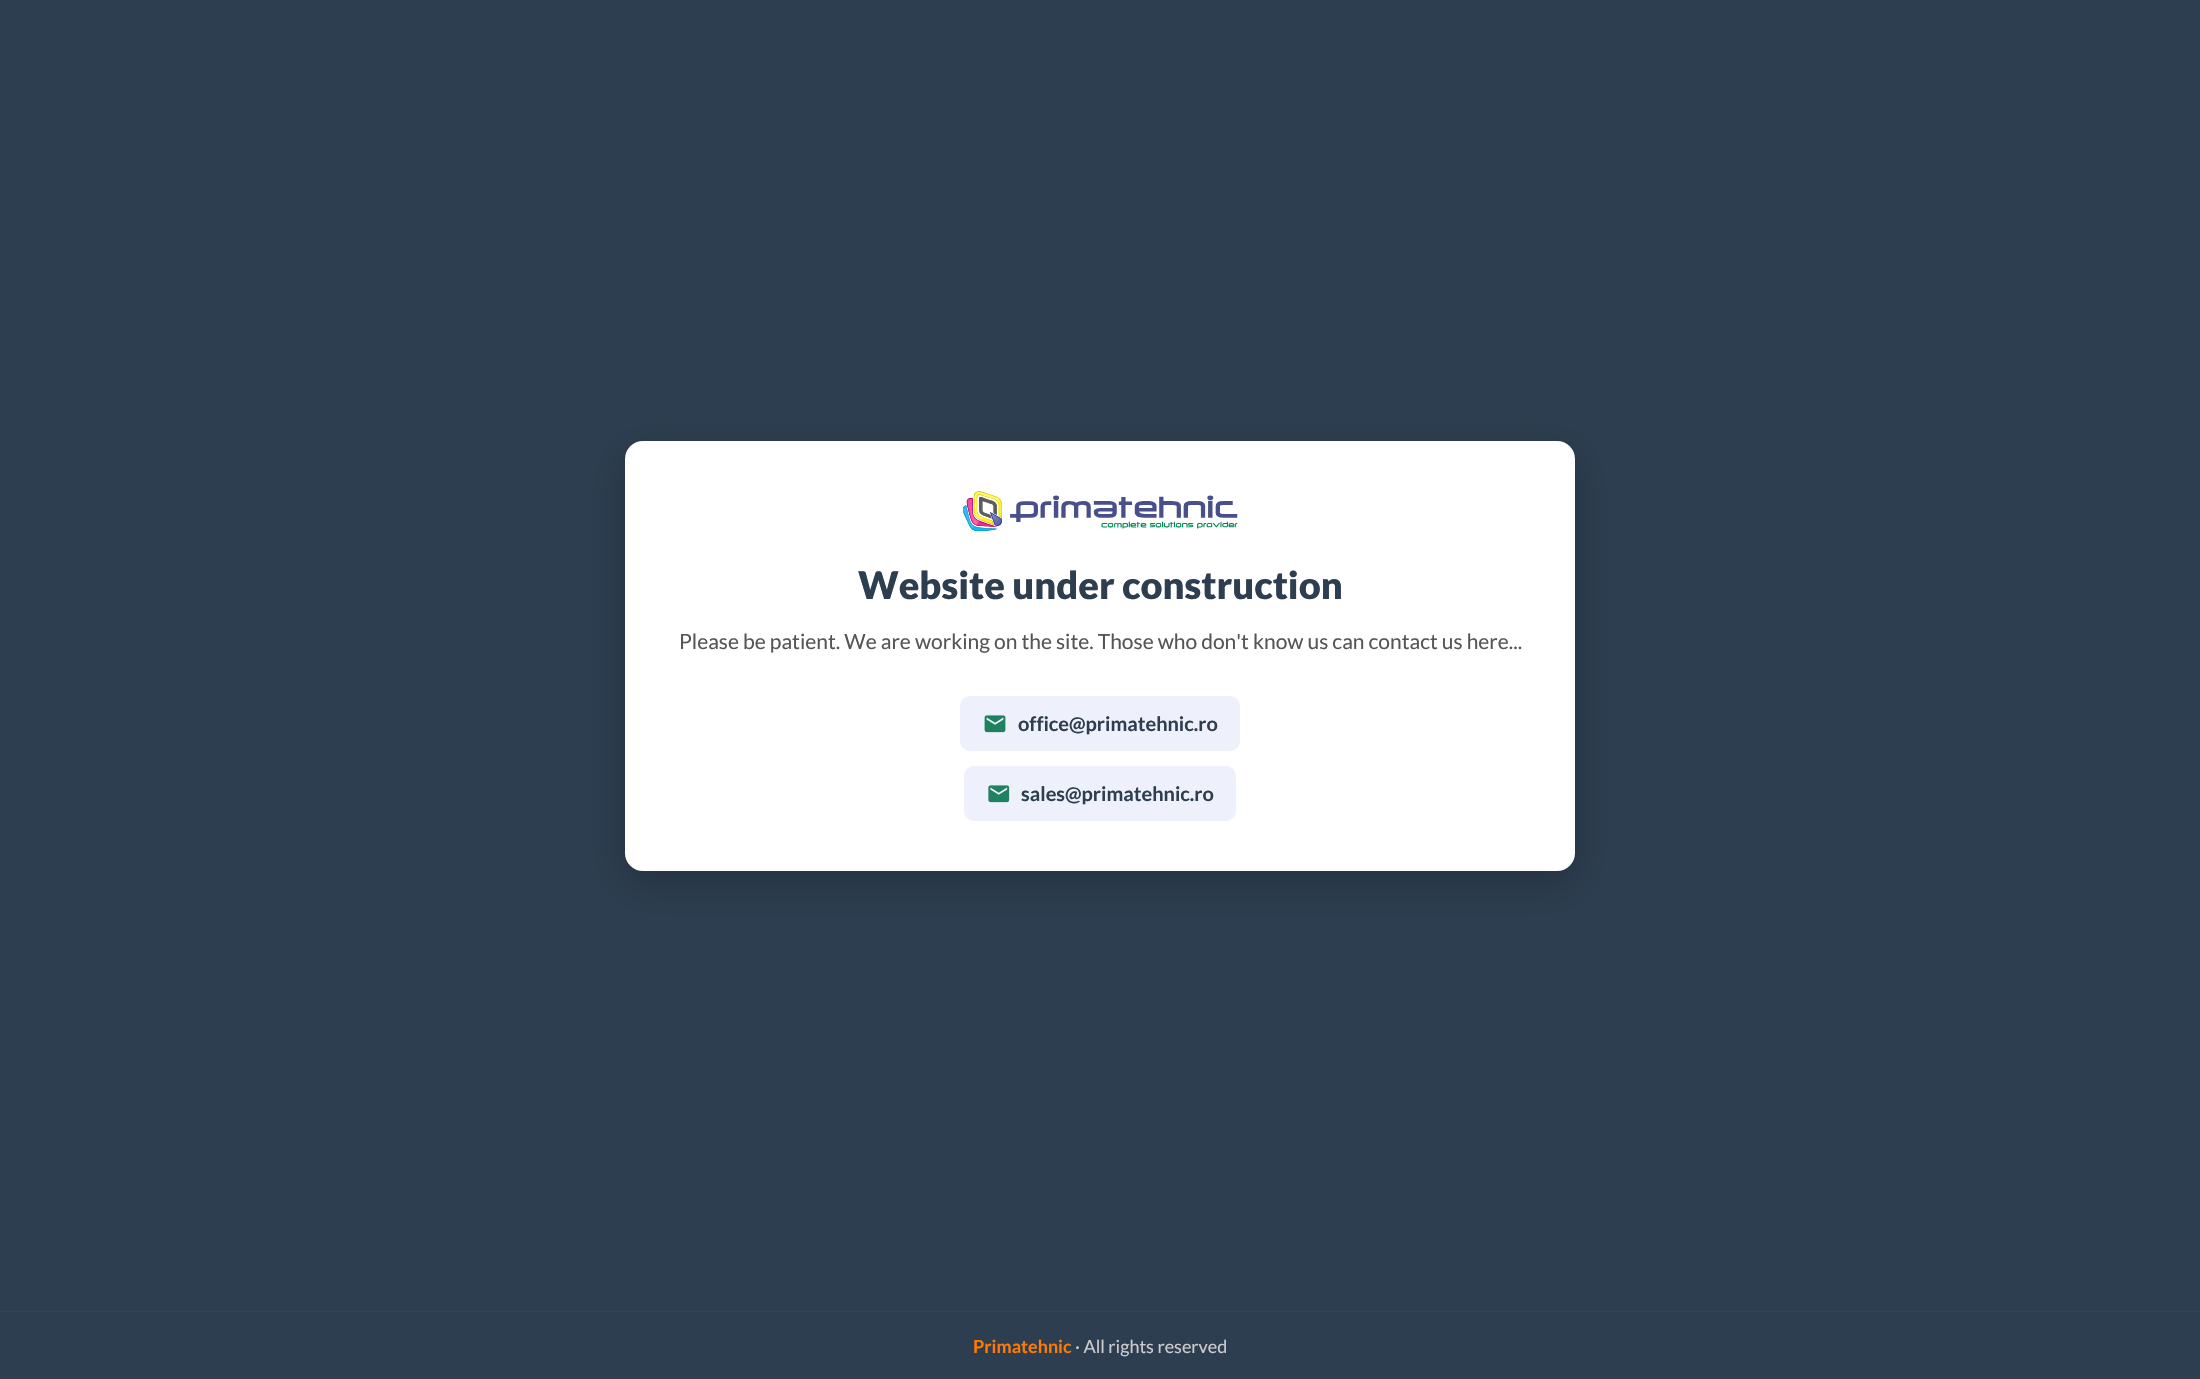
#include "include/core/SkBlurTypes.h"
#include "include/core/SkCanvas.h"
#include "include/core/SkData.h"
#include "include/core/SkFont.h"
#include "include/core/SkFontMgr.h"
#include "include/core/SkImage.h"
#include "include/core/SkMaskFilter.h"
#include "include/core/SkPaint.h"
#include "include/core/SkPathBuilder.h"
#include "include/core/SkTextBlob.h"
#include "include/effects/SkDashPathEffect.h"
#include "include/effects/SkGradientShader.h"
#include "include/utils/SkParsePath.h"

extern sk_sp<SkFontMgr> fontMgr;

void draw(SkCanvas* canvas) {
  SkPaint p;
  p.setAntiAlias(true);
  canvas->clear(SkColorSetRGB(45, 62, 80));
  p.setColor(SkColorSetARGB(51, 0, 0, 0));
  p.setMaskFilter(SkMaskFilter::MakeBlur(kNormal_SkBlurStyle, 19));
  canvas->drawRoundRect(SkRect::MakeLTRB(625, 454, 1575, 884), 18, 18, p);
  p.setMaskFilter(nullptr);
  p.setColor(SK_ColorWHITE);
  canvas->drawRoundRect(SkRect::MakeLTRB(625, 441, 1575, 871), 18, 18, p);
  canvas->drawImageRect(SkImages::DeferredFromEncodedData(SkData::MakeFromFileName("images/1.png")), SkRect::MakeLTRB(963, 491, 1238, 531), SkSamplingOptions());
  p.setColor(SkColorSetRGB(238, 241, 251));
  canvas->drawRoundRect(SkRect::MakeLTRB(960, 696, 1240, 751), 10, 10, p);
  canvas->drawImageRect(SkImages::DeferredFromEncodedData(SkData::MakeFromFileName("images/2.png")), SkRect::MakeLTRB(984, 715, 1006, 733), SkSamplingOptions());
  canvas->drawRoundRect(SkRect::MakeLTRB(964, 766, 1236, 821), 10, 10, p);
  canvas->drawImageRect(SkImages::DeferredFromEncodedData(SkData::MakeFromFileName("images/3.png")), SkRect::MakeLTRB(988, 785, 1010, 803), SkSamplingOptions());
  p.setColor(SkColorSetRGB(26, 74, 128));
  canvas->drawRect(SkRect::MakeLTRB(0, 1311, 2200, 1312), p);
  SkFont font1(fontMgr->matchFamilyStyle("Lato", SkFontStyle(900, SkFontStyle::kNormal_Width, SkFontStyle::kUpright_Slant)), 38);
  font1.setSubpixel(true);
  p.setColor(SkColorSetRGB(45, 62, 80));
  canvas->drawString("Website under construction", 858, 599, font1, p);
  SkFont font2(fontMgr->matchFamilyStyle("Lato", SkFontStyle::Normal()), 21);
  font2.setSubpixel(true);
  p.setColor(SkColorSetRGB(85, 85, 85));
  canvas->drawString("Please be patient. We are working on the site. Those who don't know us can contact us here...", 679, 649, font2, p);
  SkFont font3(fontMgr->matchFamilyStyle("Lato", SkFontStyle::Bold()), 20);
  font3.setSubpixel(true);
  p.setColor(SkColorSetRGB(45, 62, 80));
  canvas->drawString("office@primatehnic.ro", 1018, 731, font3, p);
  canvas->drawString("sales@primatehnic.ro", 1021, 801, font3, p);
  SkFont font4(fontMgr->matchFamilyStyle("Lato", SkFontStyle::Bold()), 18);
  font4.setSubpixel(true);
  p.setColor(SkColorSetRGB(255, 122, 0));
  canvas->drawString("Primatehnic", 973, 1353, font4, p);
  SkFont font5(fontMgr->matchFamilyStyle("Lato", SkFontStyle::Normal()), 18);
  font5.setSubpixel(true);
  p.setColor(SkColorSetRGB(204, 204, 204));
  canvas->drawString("· All rights reserved", 1075, 1353, font5, p);
}
